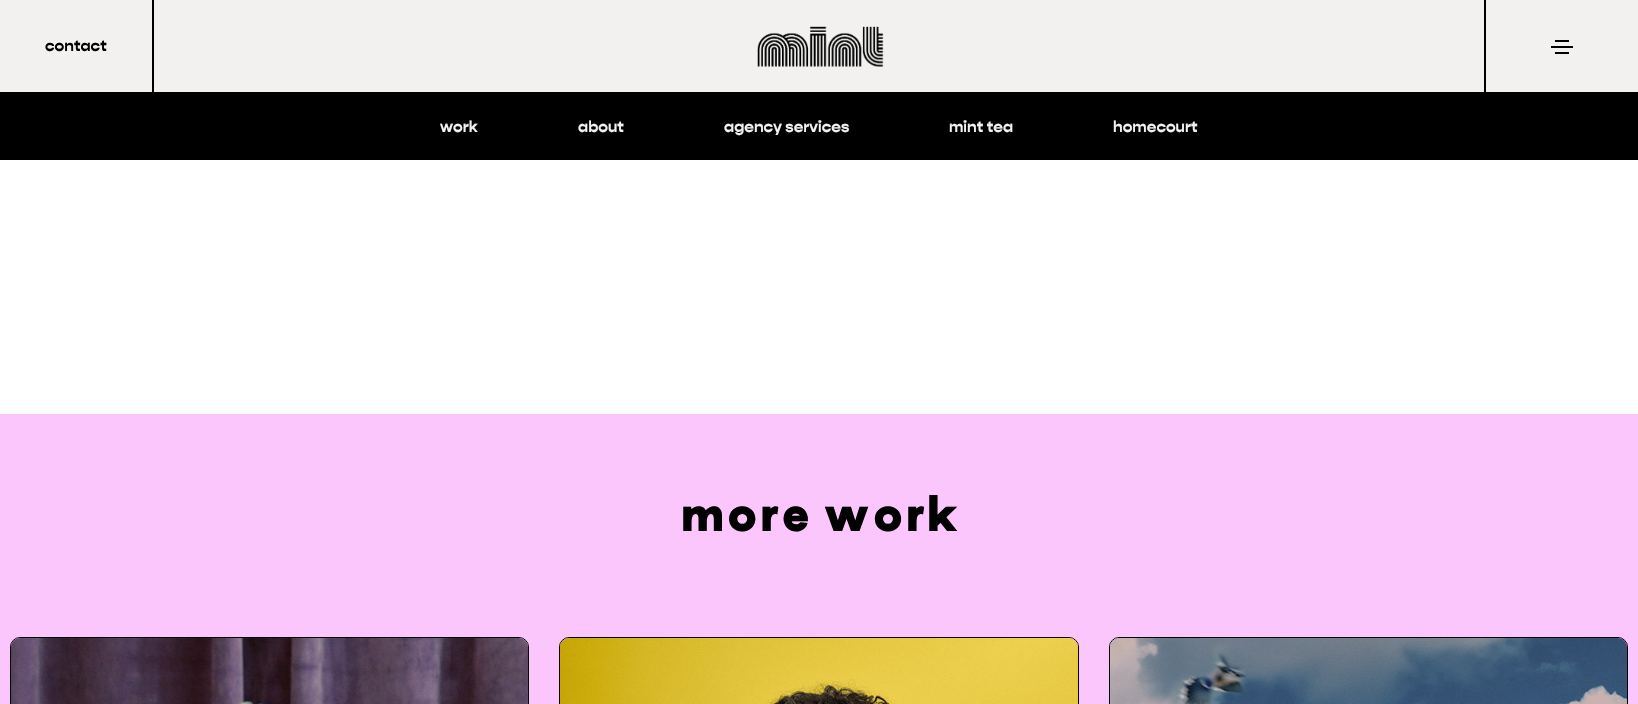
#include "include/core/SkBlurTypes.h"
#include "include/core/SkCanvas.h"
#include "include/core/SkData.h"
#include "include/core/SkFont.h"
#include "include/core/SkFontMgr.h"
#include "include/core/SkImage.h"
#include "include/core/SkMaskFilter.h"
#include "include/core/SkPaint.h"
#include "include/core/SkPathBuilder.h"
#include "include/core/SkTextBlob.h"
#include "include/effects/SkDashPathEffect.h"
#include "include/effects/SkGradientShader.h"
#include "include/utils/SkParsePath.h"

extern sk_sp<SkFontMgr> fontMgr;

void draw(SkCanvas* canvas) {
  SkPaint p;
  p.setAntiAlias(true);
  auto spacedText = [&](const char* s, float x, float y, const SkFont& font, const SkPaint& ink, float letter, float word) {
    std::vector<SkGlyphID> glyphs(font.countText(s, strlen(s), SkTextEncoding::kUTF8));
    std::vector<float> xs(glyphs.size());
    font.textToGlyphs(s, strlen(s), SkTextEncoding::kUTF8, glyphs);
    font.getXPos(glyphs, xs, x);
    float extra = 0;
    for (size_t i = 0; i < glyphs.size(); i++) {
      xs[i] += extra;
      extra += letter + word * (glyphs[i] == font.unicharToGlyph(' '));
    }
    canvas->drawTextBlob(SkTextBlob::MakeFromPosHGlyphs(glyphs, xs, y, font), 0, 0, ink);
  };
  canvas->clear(SK_ColorWHITE);
  p.setColor(SkColorSetRGB(242, 241, 240));
  canvas->drawRect(SkRect::MakeLTRB(0, 0, 1638, 92), p);
  p.setColor(SK_ColorBLACK);
  canvas->drawRect(SkRect::MakeLTRB(0, 92, 1638, 160), p);
  canvas->drawRect(SkRect::MakeLTRB(1484, 0, 1486, 92), p);
  canvas->drawRect(SkRect::MakeLTRB(152, 0, 154, 92), p);
  canvas->drawImageRect(SkImages::DeferredFromEncodedData(SkData::MakeFromFileName("images/1.png")), SkRect::MakeLTRB(757, 26, 884, 67), SkSamplingOptions());
  canvas->drawRect(SkRect::MakeLTRB(1555, 40, 1569, 42), p);
  canvas->drawRect(SkRect::MakeLTRB(1551, 46, 1573, 48), p);
  canvas->drawRect(SkRect::MakeLTRB(1555, 52, 1569, 54), p);
  p.setColor(SkColorSetRGB(251, 198, 252));
  canvas->drawRect(SkRect::MakeLTRB(0, 414, 1638, 704), p);
  p.setStyle(SkPaint::kStroke_Style);
  p.setStrokeWidth(1);
  p.setColor(SK_ColorBLACK);
  canvas->drawRoundRect(SkRect::MakeLTRB(10.5f, 637.5f, 528.5f, 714.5f), 9.5f, 9.5f, p);
  canvas->drawImageRect(SkImages::DeferredFromEncodedData(SkData::MakeFromFileName("images/2.png")), SkRect::MakeLTRB(11, 638, 528, 704), SkSamplingOptions());
  canvas->drawRoundRect(SkRect::MakeLTRB(559.5f, 637.5f, 1078.5f, 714.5f), 9.5f, 9.5f, p);
  canvas->drawImageRect(SkImages::DeferredFromEncodedData(SkData::MakeFromFileName("images/3.png")), SkRect::MakeLTRB(560, 638, 1078, 704), SkSamplingOptions());
  canvas->drawRoundRect(SkRect::MakeLTRB(1109.5f, 637.5f, 1627.5f, 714.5f), 9.5f, 9.5f, p);
  canvas->drawImageRect(SkImages::DeferredFromEncodedData(SkData::MakeFromFileName("images/4.png")), SkRect::MakeLTRB(1110, 638, 1627, 704), SkSamplingOptions());
  SkFont font1(fontMgr->matchFamilyStyle("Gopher", SkFontStyle::Bold()), 16);
  font1.setSubpixel(true);
  p.setStyle(SkPaint::kFill_Style);
  canvas->drawString("contact", 45, 51, font1, p);
  p.setColor(SkColorSetRGB(242, 241, 240));
  canvas->drawString("work", 440, 132, font1, p);
  canvas->drawString("about", 578, 132, font1, p);
  canvas->drawString("agency services", 724, 132, font1, p);
  canvas->drawString("mint tea", 949, 132, font1, p);
  canvas->drawString("homecourt", 1113, 132, font1, p);
  SkFont font2(fontMgr->matchFamilyStyle("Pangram", SkFontStyle(900, SkFontStyle::kNormal_Width, SkFontStyle::kUpright_Slant)), 48);
  font2.setSubpixel(true);
  p.setColor(SK_ColorBLACK);
  spacedText("more work", 679, 531, font2, p, -0.5f, 0);
}
